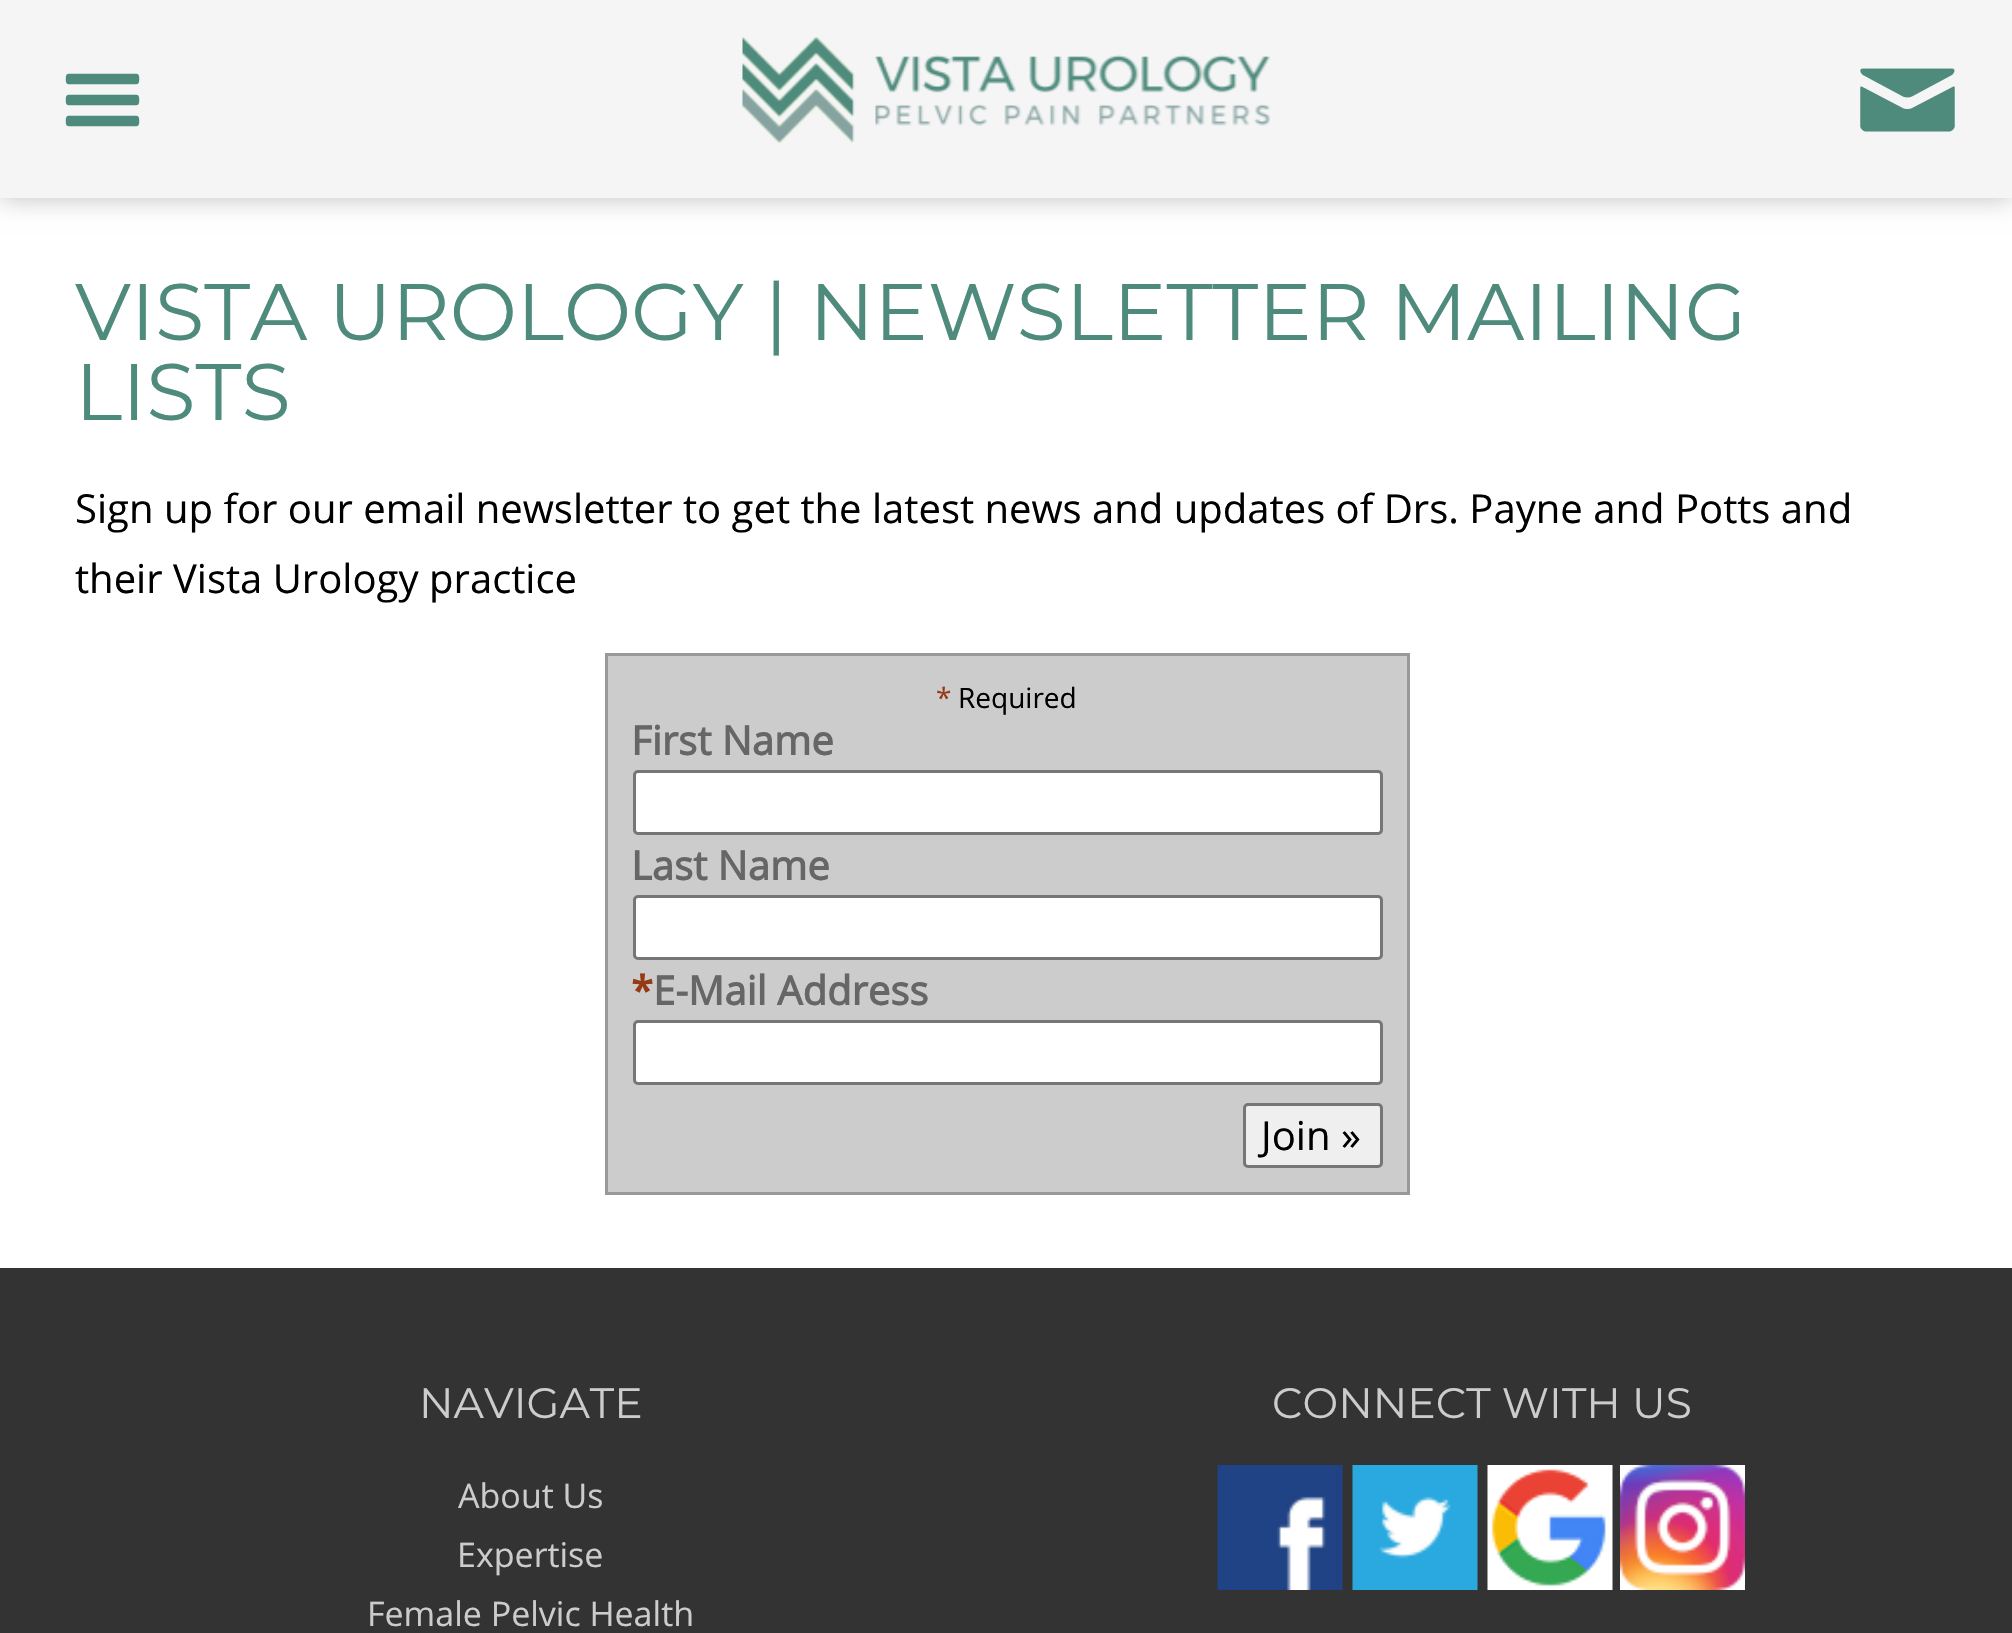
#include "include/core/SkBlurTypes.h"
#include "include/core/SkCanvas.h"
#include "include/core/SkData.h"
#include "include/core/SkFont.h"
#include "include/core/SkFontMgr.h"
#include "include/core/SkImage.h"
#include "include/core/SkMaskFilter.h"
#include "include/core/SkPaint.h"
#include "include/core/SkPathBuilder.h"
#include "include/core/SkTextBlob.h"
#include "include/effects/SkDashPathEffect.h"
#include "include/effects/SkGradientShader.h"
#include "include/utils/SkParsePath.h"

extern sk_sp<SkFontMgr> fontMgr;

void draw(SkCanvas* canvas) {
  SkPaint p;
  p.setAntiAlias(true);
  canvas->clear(SkColorSetRGB(51, 51, 51));
  p.setColor(SK_ColorWHITE);
  canvas->drawRect(SkRect::MakeLTRB(0, 198, 2012, 1268), p);
  p.setColor(SkColorSetARGB(64, 0, 0, 0));
  p.setMaskFilter(SkMaskFilter::MakeBlur(kNormal_SkBlurStyle, 12.5f));
  canvas->drawRect(SkRect::MakeLTRB(0, 0, 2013, 198), p);
  p.setMaskFilter(nullptr);
  p.setColor(SkColorSetRGB(245, 245, 245));
  canvas->drawRect(SkRect::MakeLTRB(0, 0, 2012, 198), p);
  canvas->drawImageRect(SkImages::DeferredFromEncodedData(SkData::MakeFromFileName("images/1.png")), SkRect::MakeLTRB(65, 73, 140, 127), SkSamplingOptions());
  canvas->drawImageRect(SkImages::DeferredFromEncodedData(SkData::MakeFromFileName("images/2.png")), SkRect::MakeLTRB(742, 37, 1270, 143), SkSamplingOptions());
  canvas->drawImageRect(SkImages::DeferredFromEncodedData(SkData::MakeFromFileName("images/3.png")), SkRect::MakeLTRB(1860, 68, 1955, 132), SkSamplingOptions());
  p.setColor(SkColorSetRGB(204, 204, 204));
  canvas->drawRect(SkRect::MakeLTRB(606.5f, 654.5f, 1408.5f, 1193.5f), p);
  p.setStyle(SkPaint::kStroke_Style);
  p.setStrokeWidth(3);
  p.setColor(SkColorSetRGB(153, 153, 153));
  canvas->drawRect(SkRect::MakeLTRB(606.5f, 654.5f, 1408.5f, 1193.5f), p);
  p.setStyle(SkPaint::kFill_Style);
  p.setColor(SK_ColorWHITE);
  canvas->drawRoundRect(SkRect::MakeLTRB(634.5f, 771.5f, 1381.5f, 833.5f), 3.5f, 3.5f, p);
  p.setStyle(SkPaint::kStroke_Style);
  p.setColor(SkColorSetRGB(118, 118, 118));
  canvas->drawRoundRect(SkRect::MakeLTRB(634.5f, 771.5f, 1381.5f, 833.5f), 3.5f, 3.5f, p);
  p.setStyle(SkPaint::kFill_Style);
  p.setColor(SK_ColorWHITE);
  canvas->drawRoundRect(SkRect::MakeLTRB(634.5f, 896.5f, 1381.5f, 958.5f), 3.5f, 3.5f, p);
  p.setStyle(SkPaint::kStroke_Style);
  p.setColor(SkColorSetRGB(118, 118, 118));
  canvas->drawRoundRect(SkRect::MakeLTRB(634.5f, 896.5f, 1381.5f, 958.5f), 3.5f, 3.5f, p);
  p.setStyle(SkPaint::kFill_Style);
  p.setColor(SK_ColorWHITE);
  canvas->drawRoundRect(SkRect::MakeLTRB(634.5f, 1021.5f, 1381.5f, 1083.5f), 3.5f, 3.5f, p);
  p.setStyle(SkPaint::kStroke_Style);
  p.setColor(SkColorSetRGB(118, 118, 118));
  canvas->drawRoundRect(SkRect::MakeLTRB(634.5f, 1021.5f, 1381.5f, 1083.5f), 3.5f, 3.5f, p);
  p.setStyle(SkPaint::kFill_Style);
  p.setColor(SkColorSetRGB(239, 239, 239));
  canvas->drawRoundRect(SkRect::MakeLTRB(1244.5f, 1104.5f, 1381.5f, 1166.5f), 3.5f, 3.5f, p);
  p.setStyle(SkPaint::kStroke_Style);
  p.setColor(SkColorSetRGB(118, 118, 118));
  canvas->drawRoundRect(SkRect::MakeLTRB(1244.5f, 1104.5f, 1381.5f, 1166.5f), 3.5f, 3.5f, p);
  canvas->drawImageRect(SkImages::DeferredFromEncodedData(SkData::MakeFromFileName("images/4.png")), SkRect::MakeLTRB(1217, 1465, 1343, 1590), SkSamplingOptions());
  canvas->drawImageRect(SkImages::DeferredFromEncodedData(SkData::MakeFromFileName("images/5.png")), SkRect::MakeLTRB(1352, 1465, 1478, 1590), SkSamplingOptions());
  canvas->drawImageRect(SkImages::DeferredFromEncodedData(SkData::MakeFromFileName("images/6.png")), SkRect::MakeLTRB(1487, 1465, 1613, 1590), SkSamplingOptions());
  canvas->drawImageRect(SkImages::DeferredFromEncodedData(SkData::MakeFromFileName("images/7.png")), SkRect::MakeLTRB(1620, 1465, 1745, 1590), SkSamplingOptions());
  SkFont font1(fontMgr->matchFamilyStyle("Montserrat", SkFontStyle::Normal()), 80);
  font1.setSubpixel(true);
  p.setStyle(SkPaint::kFill_Style);
  p.setColor(SkColorSetRGB(79, 139, 125));
  canvas->drawString("VISTA UROLOGY | NEWSLETTER MAILING", 75, 340, font1, p);
  canvas->drawString("LISTS", 75, 420, font1, p);
  SkFont font2(fontMgr->matchFamilyStyle("Open Sans", SkFontStyle::Normal()), 40);
  font2.setSubpixel(true);
  p.setColor(SK_ColorBLACK);
  canvas->drawString("Sign up for our email newsletter to get the latest news and updates of Drs. Payne and Potts and", 75, 523, font2, p);
  canvas->drawString("their Vista Urology practice", 75, 593, font2, p);
  SkFont font3(fontMgr->matchFamilyStyle("Open Sans", SkFontStyle::Normal()), 28);
  font3.setSubpixel(true);
  p.setColor(SkColorSetRGB(150, 58, 22));
  canvas->drawString("*", 936, 708, font3, p);
  p.setColor(SK_ColorBLACK);
  canvas->drawString("Required", 958, 708, font3, p);
  SkFont font4(fontMgr->matchFamilyStyle("Open Sans", SkFontStyle::Bold()), 40);
  font4.setSubpixel(true);
  p.setColor(SkColorSetRGB(102, 102, 102));
  canvas->drawString("First Name", 631, 755, font4, p);
  canvas->drawString("Last Name", 631, 880, font4, p);
  p.setColor(SkColorSetRGB(150, 58, 22));
  canvas->drawString("*", 631, 1005, font4, p);
  p.setColor(SkColorSetRGB(102, 102, 102));
  canvas->drawString("E-Mail Address", 653, 1005, font4, p);
  p.setColor(SK_ColorBLACK);
  canvas->drawString("Join »", 1261, 1150, font2, p);
  SkFont font5(fontMgr->matchFamilyStyle("Montserrat", SkFontStyle::Normal()), 42.5f);
  font5.setSubpixel(true);
  p.setColor(SkColorSetRGB(204, 204, 204));
  canvas->drawString("NAVIGATE", 419, 1418, font5, p);
  SkFont font6(fontMgr->matchFamilyStyle("Open Sans", SkFontStyle::Normal()), 34);
  font6.setSubpixel(true);
  canvas->drawString("About Us", 458, 1508, font6, p);
  canvas->drawString("Expertise", 457, 1567, font6, p);
  canvas->drawString("Female Pelvic Health", 367, 1626, font6, p);
  canvas->drawString("CONNECT WITH US", 1272, 1418, font5, p);
}
